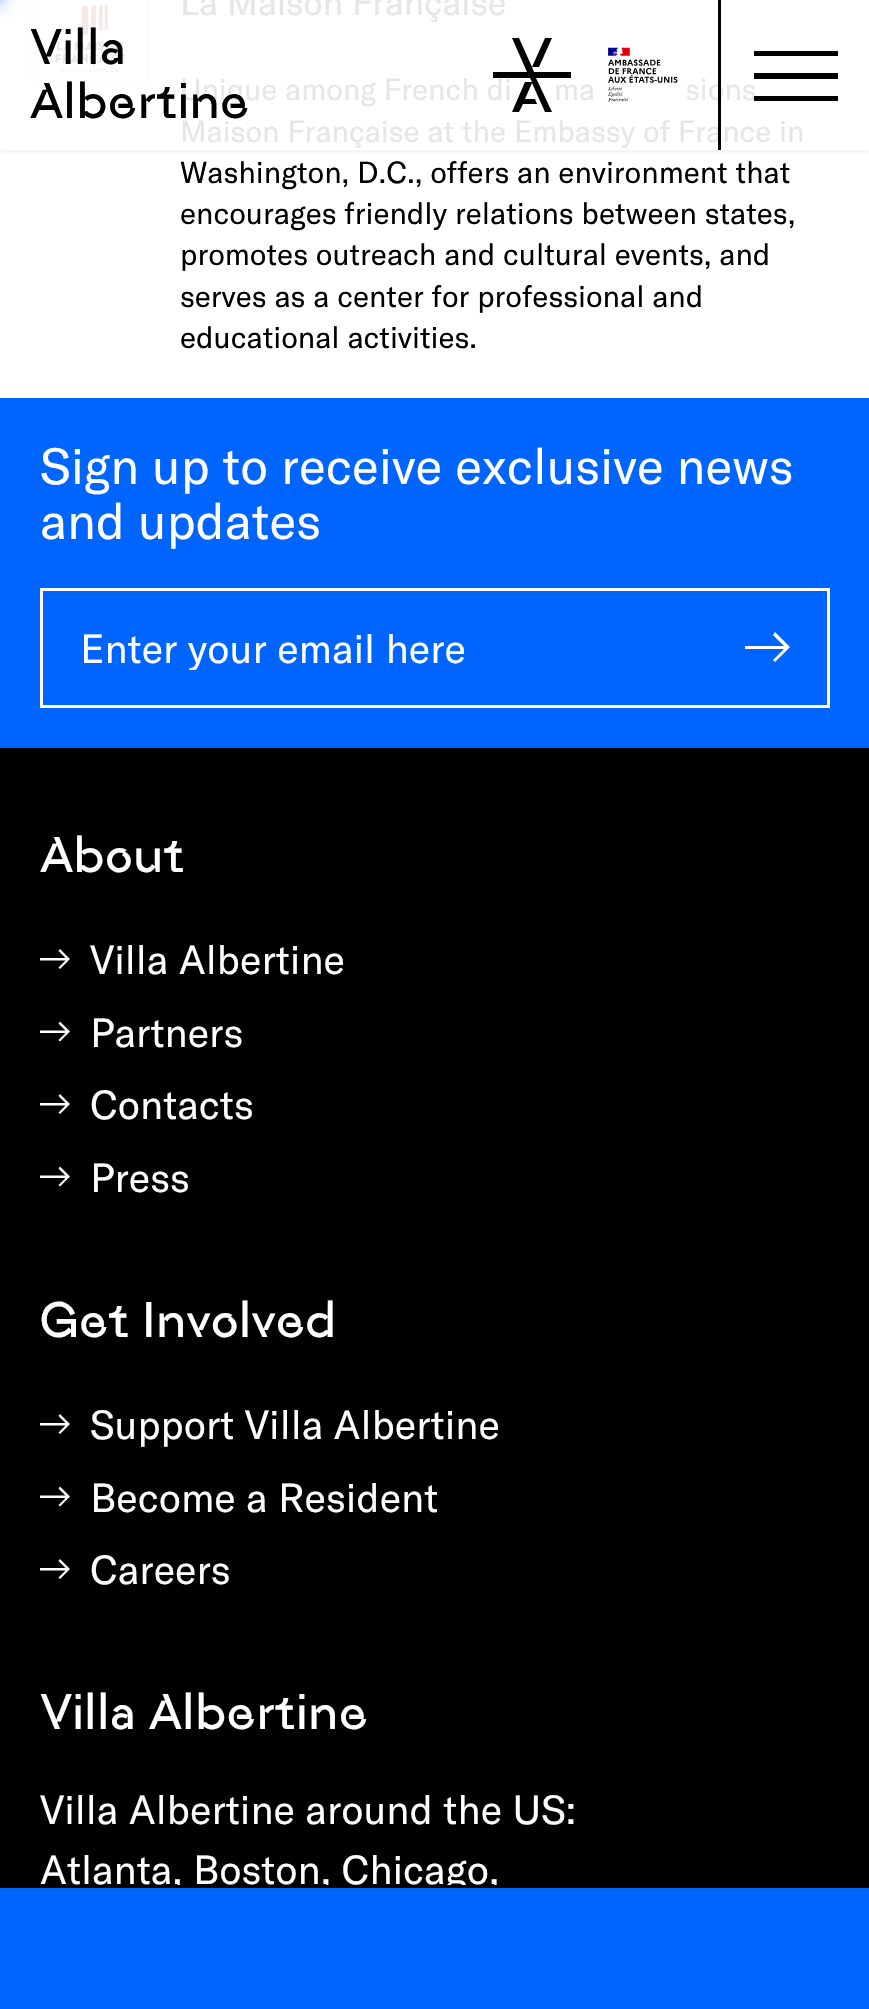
#include "include/core/SkBlurTypes.h"
#include "include/core/SkCanvas.h"
#include "include/core/SkData.h"
#include "include/core/SkFont.h"
#include "include/core/SkFontMgr.h"
#include "include/core/SkImage.h"
#include "include/core/SkMaskFilter.h"
#include "include/core/SkPaint.h"
#include "include/core/SkPathBuilder.h"
#include "include/core/SkTextBlob.h"
#include "include/effects/SkDashPathEffect.h"
#include "include/effects/SkGradientShader.h"
#include "include/utils/SkParsePath.h"

extern sk_sp<SkFontMgr> fontMgr;

void draw(SkCanvas* canvas) {
  SkPaint p;
  p.setAntiAlias(true);
  canvas->clear(SK_ColorWHITE);
  p.setColor(SkColorSetRGB(0, 100, 255));
  p.setMaskFilter(SkMaskFilter::MakeBlur(kNormal_SkBlurStyle, 6.5f));
  canvas->drawRect(SkRect::MakeLTRB(-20, -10, 0, -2), p);
  p.setMaskFilter(nullptr);
  p.setStyle(SkPaint::kStroke_Style);
  p.setStrokeWidth(3);
  p.setColor(SkColorSetRGB(252, 253, 253));
  canvas->drawRoundRect(SkRect::MakeLTRB(31.5f, -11.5f, 148.5f, 86.5f), 8.5f, 8.5f, p);
  p.setStyle(SkPaint::kFill_Style);
  p.setColor(SkColorSetRGB(0, 100, 255));
  p.setMaskFilter(SkMaskFilter::MakeBlur(kNormal_SkBlurStyle, 12.5f));
  canvas->drawRect(SkRect::MakeLTRB(-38, -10, 0, -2), p);
  p.setMaskFilter(nullptr);
  canvas->drawImageRect(SkImages::DeferredFromEncodedData(SkData::MakeFromFileName("images/1.png")), SkRect::MakeLTRB(55, 4, 125, 73), SkSamplingOptions());
  canvas->drawRect(SkRect::MakeLTRB(0, 398, 869, 748), p);
  p.setStyle(SkPaint::kStroke_Style);
  p.setColor(SK_ColorWHITE);
  canvas->drawRect(SkRect::MakeLTRB(41.5f, 589.5f, 828.5f, 706.5f), p);
  p.setStyle(SkPaint::kFill_Style);
  canvas->drawPath(SkPathBuilder(SkPathFillType::kEvenOdd).moveTo(775, 632).lineTo(773, 635).lineTo(784, 646).lineTo(745, 646).lineTo(745, 649).lineTo(784, 649).lineTo(773, 660).lineTo(775, 662).lineTo(790, 647).close().detach(), p);
  canvas->save();
  canvas->clipRect(SkRect::MakeLTRB(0, 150, 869, 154));
  p.setColor(SkColorSetARGB(13, 0, 0, 0));
  p.setMaskFilter(SkMaskFilter::MakeBlur(kNormal_SkBlurStyle, 2.5f));
  canvas->drawRect(SkRect::MakeLTRB(0, 3, 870, 153), p);
  p.setMaskFilter(nullptr);
  canvas->restore();
  p.setColor(SK_ColorBLACK);
  canvas->drawRect(SkRect::MakeLTRB(0, 748, 869, 1885), p);
  p.setColor(SK_ColorWHITE);
  canvas->drawPath(SkPathBuilder(SkPathFillType::kEvenOdd).moveTo(60, 949).lineTo(58.5f, 951).lineTo(65.5f, 958).lineTo(40, 958).lineTo(40, 960.5f).lineTo(65.5f, 960.5f).lineTo(58.5f, 967.5f).lineTo(60, 969).lineTo(70, 959).close().detach(), p);
  canvas->drawPath(SkPathBuilder(SkPathFillType::kEvenOdd).moveTo(60, 1021.5f).lineTo(58.5f, 1023.5f).lineTo(65.5f, 1030.5f).lineTo(40, 1030.5f).lineTo(40, 1033).lineTo(65.5f, 1033).lineTo(58.5f, 1040).lineTo(60, 1041.5f).lineTo(70, 1031.5f).close().detach(), p);
  canvas->drawPath(SkPathBuilder(SkPathFillType::kEvenOdd).moveTo(60, 1094).lineTo(58.5f, 1096).lineTo(65.5f, 1103).lineTo(40, 1103).lineTo(40, 1105.5f).lineTo(65.5f, 1105.5f).lineTo(58.5f, 1112.5f).lineTo(60, 1114).lineTo(70, 1104).close().detach(), p);
  canvas->drawPath(SkPathBuilder(SkPathFillType::kEvenOdd).moveTo(60, 1166.5f).lineTo(58.5f, 1168.5f).lineTo(65.5f, 1175.5f).lineTo(40, 1175.5f).lineTo(40, 1178).lineTo(65.5f, 1178).lineTo(58.5f, 1185).lineTo(60, 1186.5f).lineTo(70, 1176.5f).close().detach(), p);
  canvas->drawPath(SkPathBuilder(SkPathFillType::kEvenOdd).moveTo(60, 1414).lineTo(58.5f, 1416).lineTo(65.5f, 1423).lineTo(40, 1423).lineTo(40, 1425.5f).lineTo(65.5f, 1425.5f).lineTo(58.5f, 1432.5f).lineTo(60, 1434).lineTo(70, 1424).close().detach(), p);
  canvas->drawPath(SkPathBuilder(SkPathFillType::kEvenOdd).moveTo(60, 1486.5f).lineTo(58.5f, 1488.5f).lineTo(65.5f, 1495.5f).lineTo(40, 1495.5f).lineTo(40, 1498).lineTo(65.5f, 1498).lineTo(58.5f, 1505).lineTo(60, 1506.5f).lineTo(70, 1496.5f).close().detach(), p);
  canvas->drawPath(SkPathBuilder(SkPathFillType::kEvenOdd).moveTo(60, 1559).lineTo(58.5f, 1561).lineTo(65.5f, 1568).lineTo(40, 1568).lineTo(40, 1570.5f).lineTo(65.5f, 1570.5f).lineTo(58.5f, 1577.5f).lineTo(60, 1579).lineTo(70, 1569).close().detach(), p);
  SkFont font1(fontMgr->matchFamilyStyle("GT America", SkFontStyle::Normal()), 35);
  font1.setSubpixel(true);
  p.setColor(SkColorSetRGB(230, 230, 230));
  canvas->drawString("La Maison Française", 180, 15, font1, p);
  SkFont font2(fontMgr->matchFamilyStyle("GT America", SkFontStyle::Normal()), 30);
  font2.setSubpixel(true);
  canvas->drawString("Unique among French di", 180, 100, font2, p);
  canvas->drawString("ma", 554, 100, font2, p);
  canvas->drawString("sions", 685, 100, font2, p);
  canvas->drawString("Maison Française at the Embassy of France in", 180, 142, font2, p);
  p.setColor(SK_ColorBLACK);
  canvas->drawString("Washington, D.C., offers an environment that", 180, 183, font2, p);
  canvas->drawString("encourages friendly relations between states,", 180, 224, font2, p);
  canvas->drawString("promotes outreach and cultural events, and", 180, 265, font2, p);
  canvas->drawString("serves as a center for professional and", 180, 307, font2, p);
  canvas->drawString("educational activities.", 180, 348, font2, p);
  SkFont font3(fontMgr->matchFamilyStyle("GT America", SkFontStyle::Normal()), 50);
  font3.setSubpixel(true);
  p.setColor(SK_ColorWHITE);
  canvas->drawString("Sign up to receive exclusive news", 40, 484, font3, p);
  canvas->drawString("and updates", 40, 539, font3, p);
  canvas->save();
  canvas->clipRect(SkRect::MakeLTRB(80, 623, 658, 670));
  SkFont font4(fontMgr->matchFamilyStyle("GT America", SkFontStyle::Normal()), 40);
  font4.setSubpixel(true);
  canvas->drawString("Enter your email here", 80, 663, font4, p);
  canvas->restore();
  p.setColor(SK_ColorBLACK);
  canvas->drawRect(SkRect::MakeLTRB(718, 0, 721, 150), p);
  SkFont font5(fontMgr->matchFamilyStyle("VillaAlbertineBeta", SkFontStyle::Normal()), 50);
  font5.setSubpixel(true);
  canvas->drawString("Villa", 30, 64, font5, p);
  canvas->drawString("Albertine", 30, 118, font5, p);
  canvas->drawPath(SkPathBuilder(SkPathFillType::kEvenOdd).moveTo(545, 38).lineTo(532, 67).lineTo(519, 38).lineTo(512, 38).lineTo(527, 72).lineTo(493, 72).lineTo(493, 78).lineTo(530, 78).lineTo(532, 82).lineTo(525, 82).lineTo(512, 112).lineTo(519, 112).lineTo(523, 104).lineTo(537, 104).lineTo(535, 99).lineTo(525, 99).lineTo(532, 83).lineTo(545, 112).lineTo(552, 112).lineTo(536, 78).lineTo(571, 78).lineTo(571, 72).lineTo(534, 72).lineTo(532, 67).lineTo(539, 67).lineTo(552, 38).close().detach(), p);
  canvas->drawImageRect(SkImages::DeferredFromEncodedData(SkData::MakeFromFileName("images/2.png")), SkRect::MakeLTRB(598, 47, 688, 102), SkSamplingOptions());
  canvas->drawPath(SkPathBuilder(SkPathFillType::kEvenOdd).moveTo(838, 96).lineTo(838, 101).lineTo(754, 101).lineTo(754, 96).close().moveTo(838, 73).lineTo(838, 79).lineTo(754, 79).lineTo(754, 73).close().moveTo(838, 51).lineTo(838, 56).lineTo(754, 56).lineTo(754, 51).close().detach(), p);
  p.setColor(SK_ColorWHITE);
  canvas->drawString("About", 40, 872, font5, p);
  canvas->drawString("Villa Albertine", 90, 974, font4, p);
  canvas->drawString("Partners", 90, 1047, font4, p);
  canvas->drawString("Contacts", 90, 1119, font4, p);
  canvas->drawString("Press", 90, 1192, font4, p);
  canvas->drawString("Get Involved", 40, 1337, font5, p);
  canvas->drawString("Support Villa Albertine", 90, 1439, font4, p);
  canvas->drawString("Become a Resident", 90, 1512, font4, p);
  canvas->drawString("Careers", 90, 1584, font4, p);
  canvas->drawString("Villa Albertine", 40, 1729, font5, p);
  canvas->drawString("Villa Albertine around the US:", 40, 1824, font4, p);
  canvas->drawString("Atlanta, Boston, Chicago,", 40, 1884, font4, p);
  p.setColor(SK_ColorBLACK);
  canvas->drawRect(SkRect::MakeLTRB(0, 1885, 869, 1888), p);
  p.setColor(SkColorSetRGB(0, 100, 255));
  canvas->drawRect(SkRect::MakeLTRB(0, 1888, 869, 2009), p);
}
